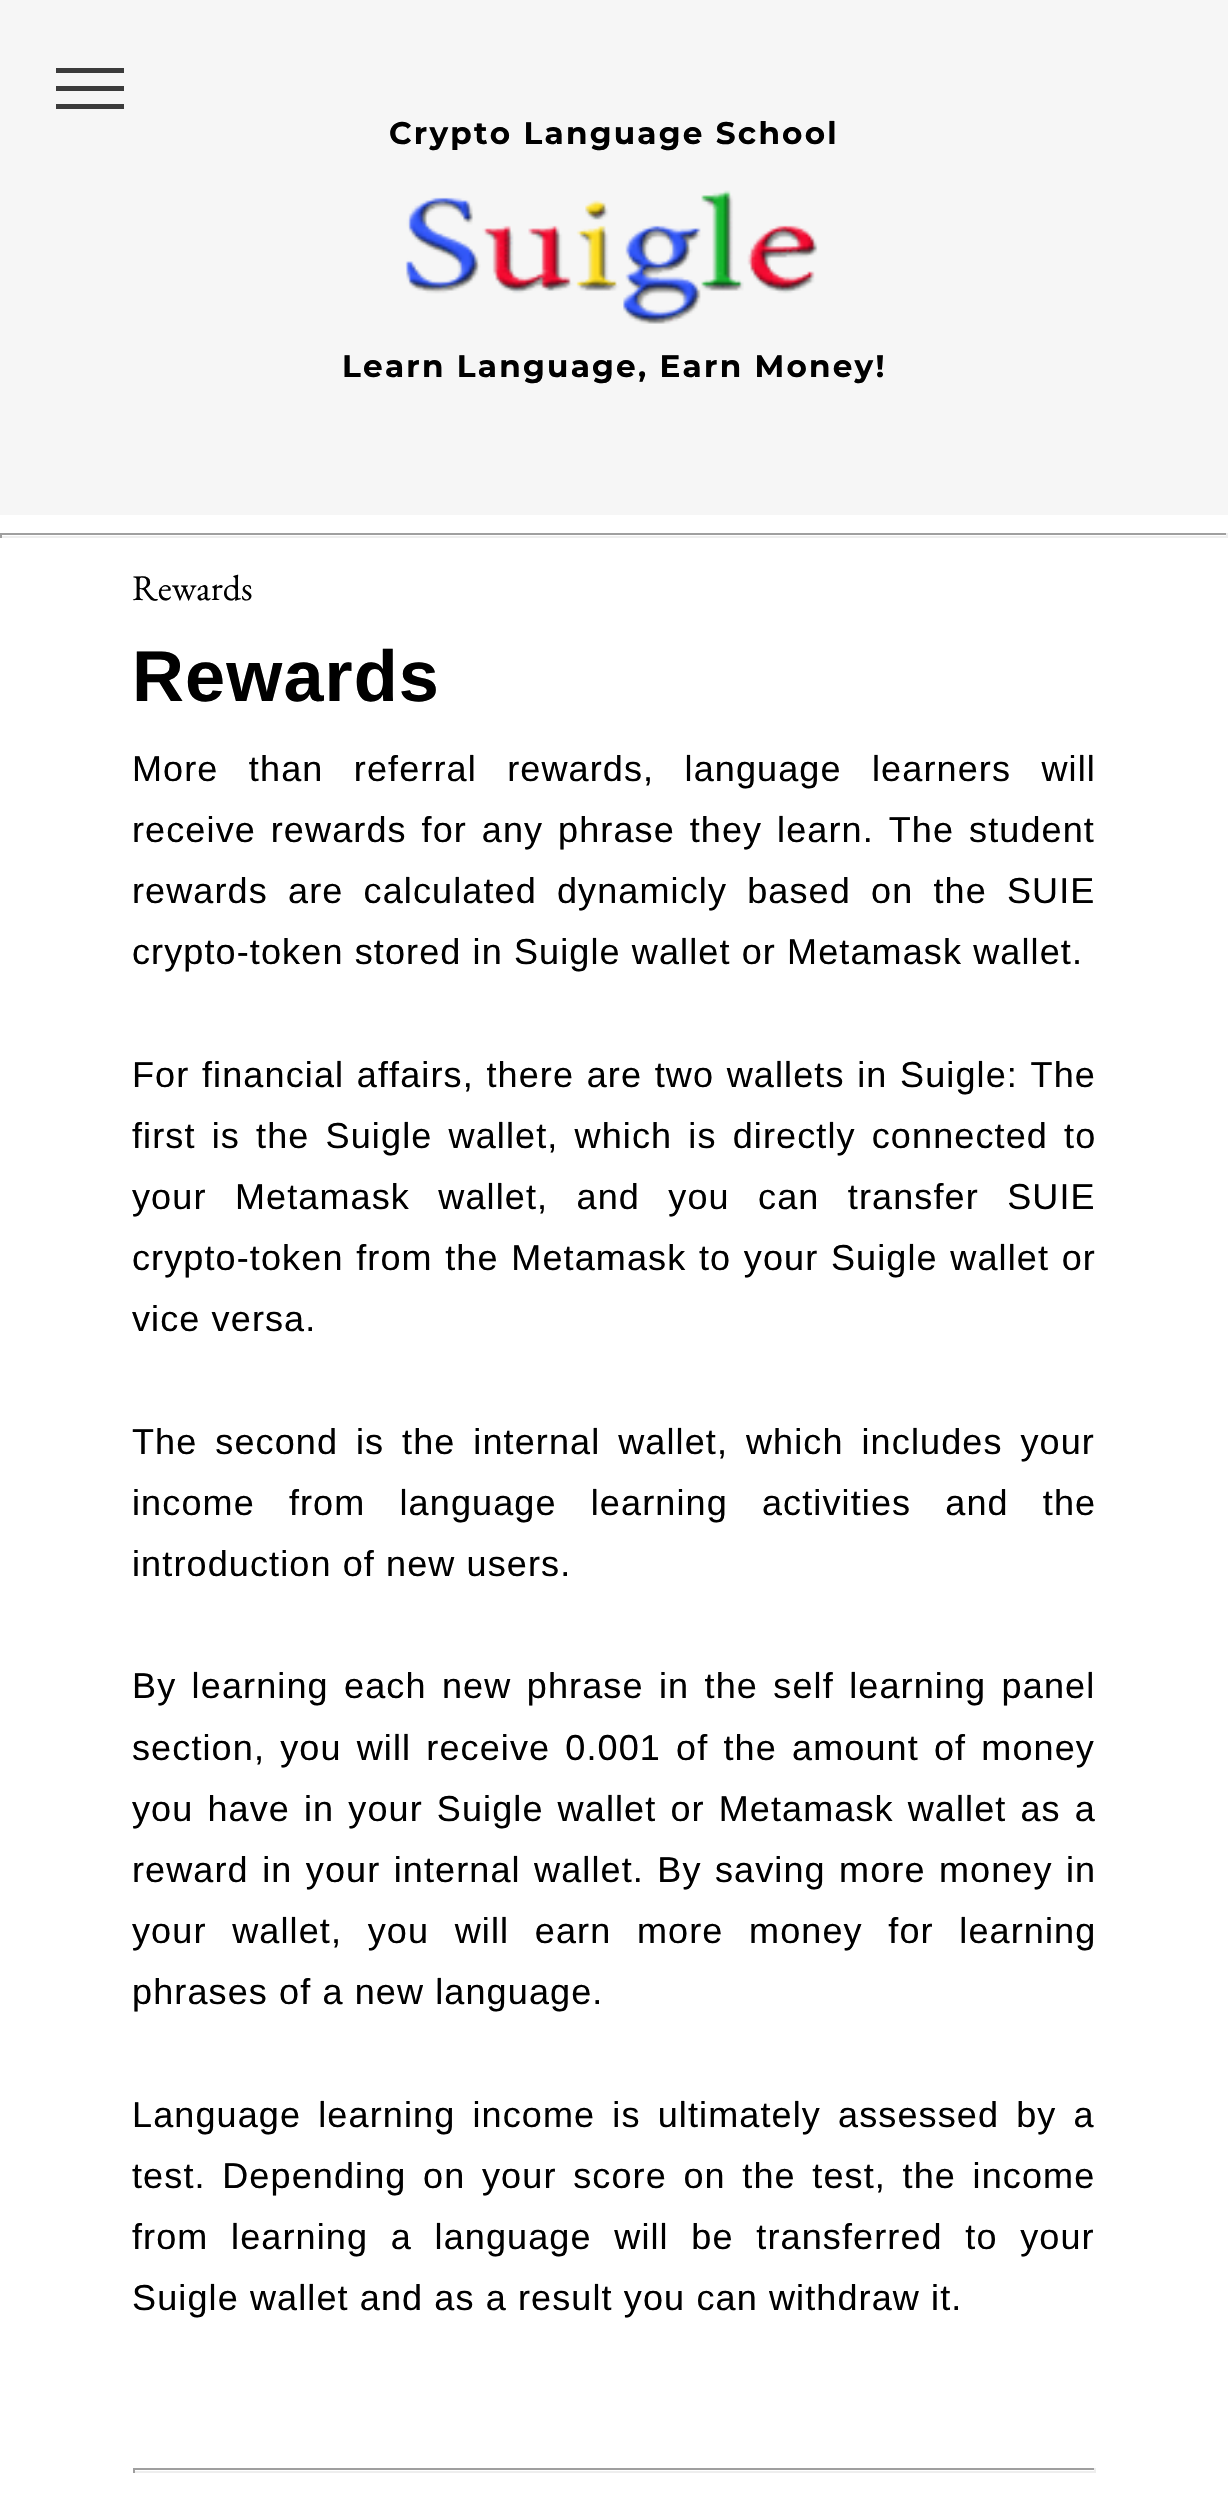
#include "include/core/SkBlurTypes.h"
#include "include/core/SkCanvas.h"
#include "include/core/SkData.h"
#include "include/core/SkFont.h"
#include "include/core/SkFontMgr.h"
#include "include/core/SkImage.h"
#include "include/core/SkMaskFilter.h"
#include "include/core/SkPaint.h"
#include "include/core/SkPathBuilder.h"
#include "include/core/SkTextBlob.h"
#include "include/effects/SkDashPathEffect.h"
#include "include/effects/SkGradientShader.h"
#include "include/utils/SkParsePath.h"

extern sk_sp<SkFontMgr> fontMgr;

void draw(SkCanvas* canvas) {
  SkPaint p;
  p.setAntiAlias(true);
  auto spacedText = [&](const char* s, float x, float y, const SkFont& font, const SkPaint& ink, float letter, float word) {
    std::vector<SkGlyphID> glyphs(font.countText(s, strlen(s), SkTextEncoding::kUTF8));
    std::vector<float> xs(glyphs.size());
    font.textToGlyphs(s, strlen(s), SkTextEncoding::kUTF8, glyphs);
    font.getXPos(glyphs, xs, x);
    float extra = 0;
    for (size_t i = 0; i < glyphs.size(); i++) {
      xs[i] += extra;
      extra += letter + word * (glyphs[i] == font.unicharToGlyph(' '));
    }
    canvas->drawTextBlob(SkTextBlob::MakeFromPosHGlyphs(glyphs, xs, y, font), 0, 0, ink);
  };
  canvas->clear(SK_ColorWHITE);
  p.setColor(SkColorSetRGB(246, 246, 246));
  canvas->drawRect(SkRect::MakeLTRB(0, 0, 1228, 515), p);
  p.setColor(SkColorSetRGB(59, 59, 59));
  canvas->drawRect(SkRect::MakeLTRB(56, 68, 124, 73), p);
  canvas->drawRect(SkRect::MakeLTRB(56, 86, 124, 91), p);
  canvas->drawRect(SkRect::MakeLTRB(56, 104, 124, 109), p);
  canvas->drawImageRect(SkImages::DeferredFromEncodedData(SkData::MakeFromFileName("images/1.png")), SkRect::MakeLTRB(405, 190, 818, 324), SkSamplingOptions());
  p.setColor(SkColorSetRGB(159, 159, 159));
  canvas->drawRect(SkRect::MakeLTRB(0, 533, 1228, 535), p);
  p.setColor(SkColorSetRGB(238, 238, 238));
  canvas->drawRect(SkRect::MakeLTRB(1226, 533, 1228, 538), p);
  canvas->drawRect(SkRect::MakeLTRB(0, 536, 1228, 538), p);
  p.setColor(SkColorSetRGB(159, 159, 159));
  canvas->drawRect(SkRect::MakeLTRB(0, 533, 2, 538), p);
  canvas->drawRect(SkRect::MakeLTRB(133, 2468, 1096, 2470), p);
  p.setColor(SkColorSetRGB(238, 238, 238));
  canvas->drawRect(SkRect::MakeLTRB(1094, 2468, 1096, 2473), p);
  canvas->drawRect(SkRect::MakeLTRB(133, 2471, 1096, 2473), p);
  p.setColor(SkColorSetRGB(159, 159, 159));
  canvas->drawRect(SkRect::MakeLTRB(133, 2468, 135, 2473), p);
  SkFont font1(fontMgr->matchFamilyStyle("Montserrat", SkFontStyle::Bold()), 31.1f);
  font1.setSubpixel(true);
  p.setColor(SK_ColorBLACK);
  spacedText("Crypto Language School", 389, 144, font1, p, 2.25f, 0);
  spacedText("Learn Language, Earn Money!", 342, 377, font1, p, 2.25f, 0);
  SkFont font2(fontMgr->matchFamilyStyle("EB Garamond", SkFontStyle::Normal()), 36);
  font2.setSubpixel(true);
  canvas->drawString("Rewards", 132, 600, font2, p);
  SkFont font3(fontMgr->matchFamilyStyle("Liberation Sans", SkFontStyle::Bold()), 72);
  font3.setSubpixel(true);
  spacedText("Rewards", 132, 701, font3, p, 1.12f, 0);
  SkFont font4(fontMgr->matchFamilyStyle("Liberation Sans", SkFontStyle::Normal()), 36);
  font4.setSubpixel(true);
  spacedText("More than referral rewards, language learners will", 132, 781, font4, p, 1.12f, 19.25f);
  spacedText("receive rewards for any phrase they learn. The student", 132, 842, font4, p, 1.12f, 3.75f);
  spacedText("rewards are calculated dynamicly based on the SUIE", 132, 903, font4, p, 1.12f, 9);
  spacedText("crypto-token stored in Suigle wallet or Metamask wallet.", 132, 964, font4, p, 1.12f, 0);
  spacedText("For financial affairs, there are two wallets in Suigle: The", 132, 1087, font4, p, 1.12f, 1.5f);
  spacedText("first is the Suigle wallet, which is directly connected to", 132, 1148, font4, p, 1.12f, 5);
  spacedText("your Metamask wallet, and you can transfer SUIE", 132, 1209, font4, p, 1.12f, 17.25f);
  spacedText("crypto-token from the Metamask to your Suigle wallet or", 132, 1270, font4, p, 1.12f, 1.5f);
  spacedText("vice versa.", 132, 1331, font4, p, 1.12f, 0);
  spacedText("The second is the internal wallet, which includes your", 132, 1454, font4, p, 1.12f, 6.75f);
  spacedText("income from language learning activities and the", 132, 1515, font4, p, 1.12f, 23);
  spacedText("introduction of new users.", 132, 1576, font4, p, 1.12f, 0);
  spacedText("By learning each new phrase in the self learning panel", 132, 1698, font4, p, 1.12f, 4.25f);
  spacedText("section, you will receive 0.001 of the amount of money", 132, 1760, font4, p, 1.12f, 4);
  spacedText("you have in your Suigle wallet or Metamask wallet as a", 132, 1821, font4, p, 1.12f, 2.9f);
  spacedText("reward in your internal wallet. By saving more money in", 132, 1882, font4, p, 1.12f, 2.25f);
  spacedText("your wallet, you will earn more money for learning", 132, 1943, font4, p, 1.12f, 14.5f);
  spacedText("phrases of a new language.", 132, 2004, font4, p, 1.12f, 0);
  spacedText("Language learning income is ultimately assessed by a", 132, 2127, font4, p, 1.12f, 6);
  spacedText("test. Depending on your score on the test, the income", 132, 2188, font4, p, 1.12f, 5.5f);
  spacedText("from learning a language will be transferred to your", 132, 2249, font4, p, 1.12f, 11.5f);
  spacedText("Suigle wallet and as a result you can withdraw it.", 132, 2310, font4, p, 1.12f, 0);
}
